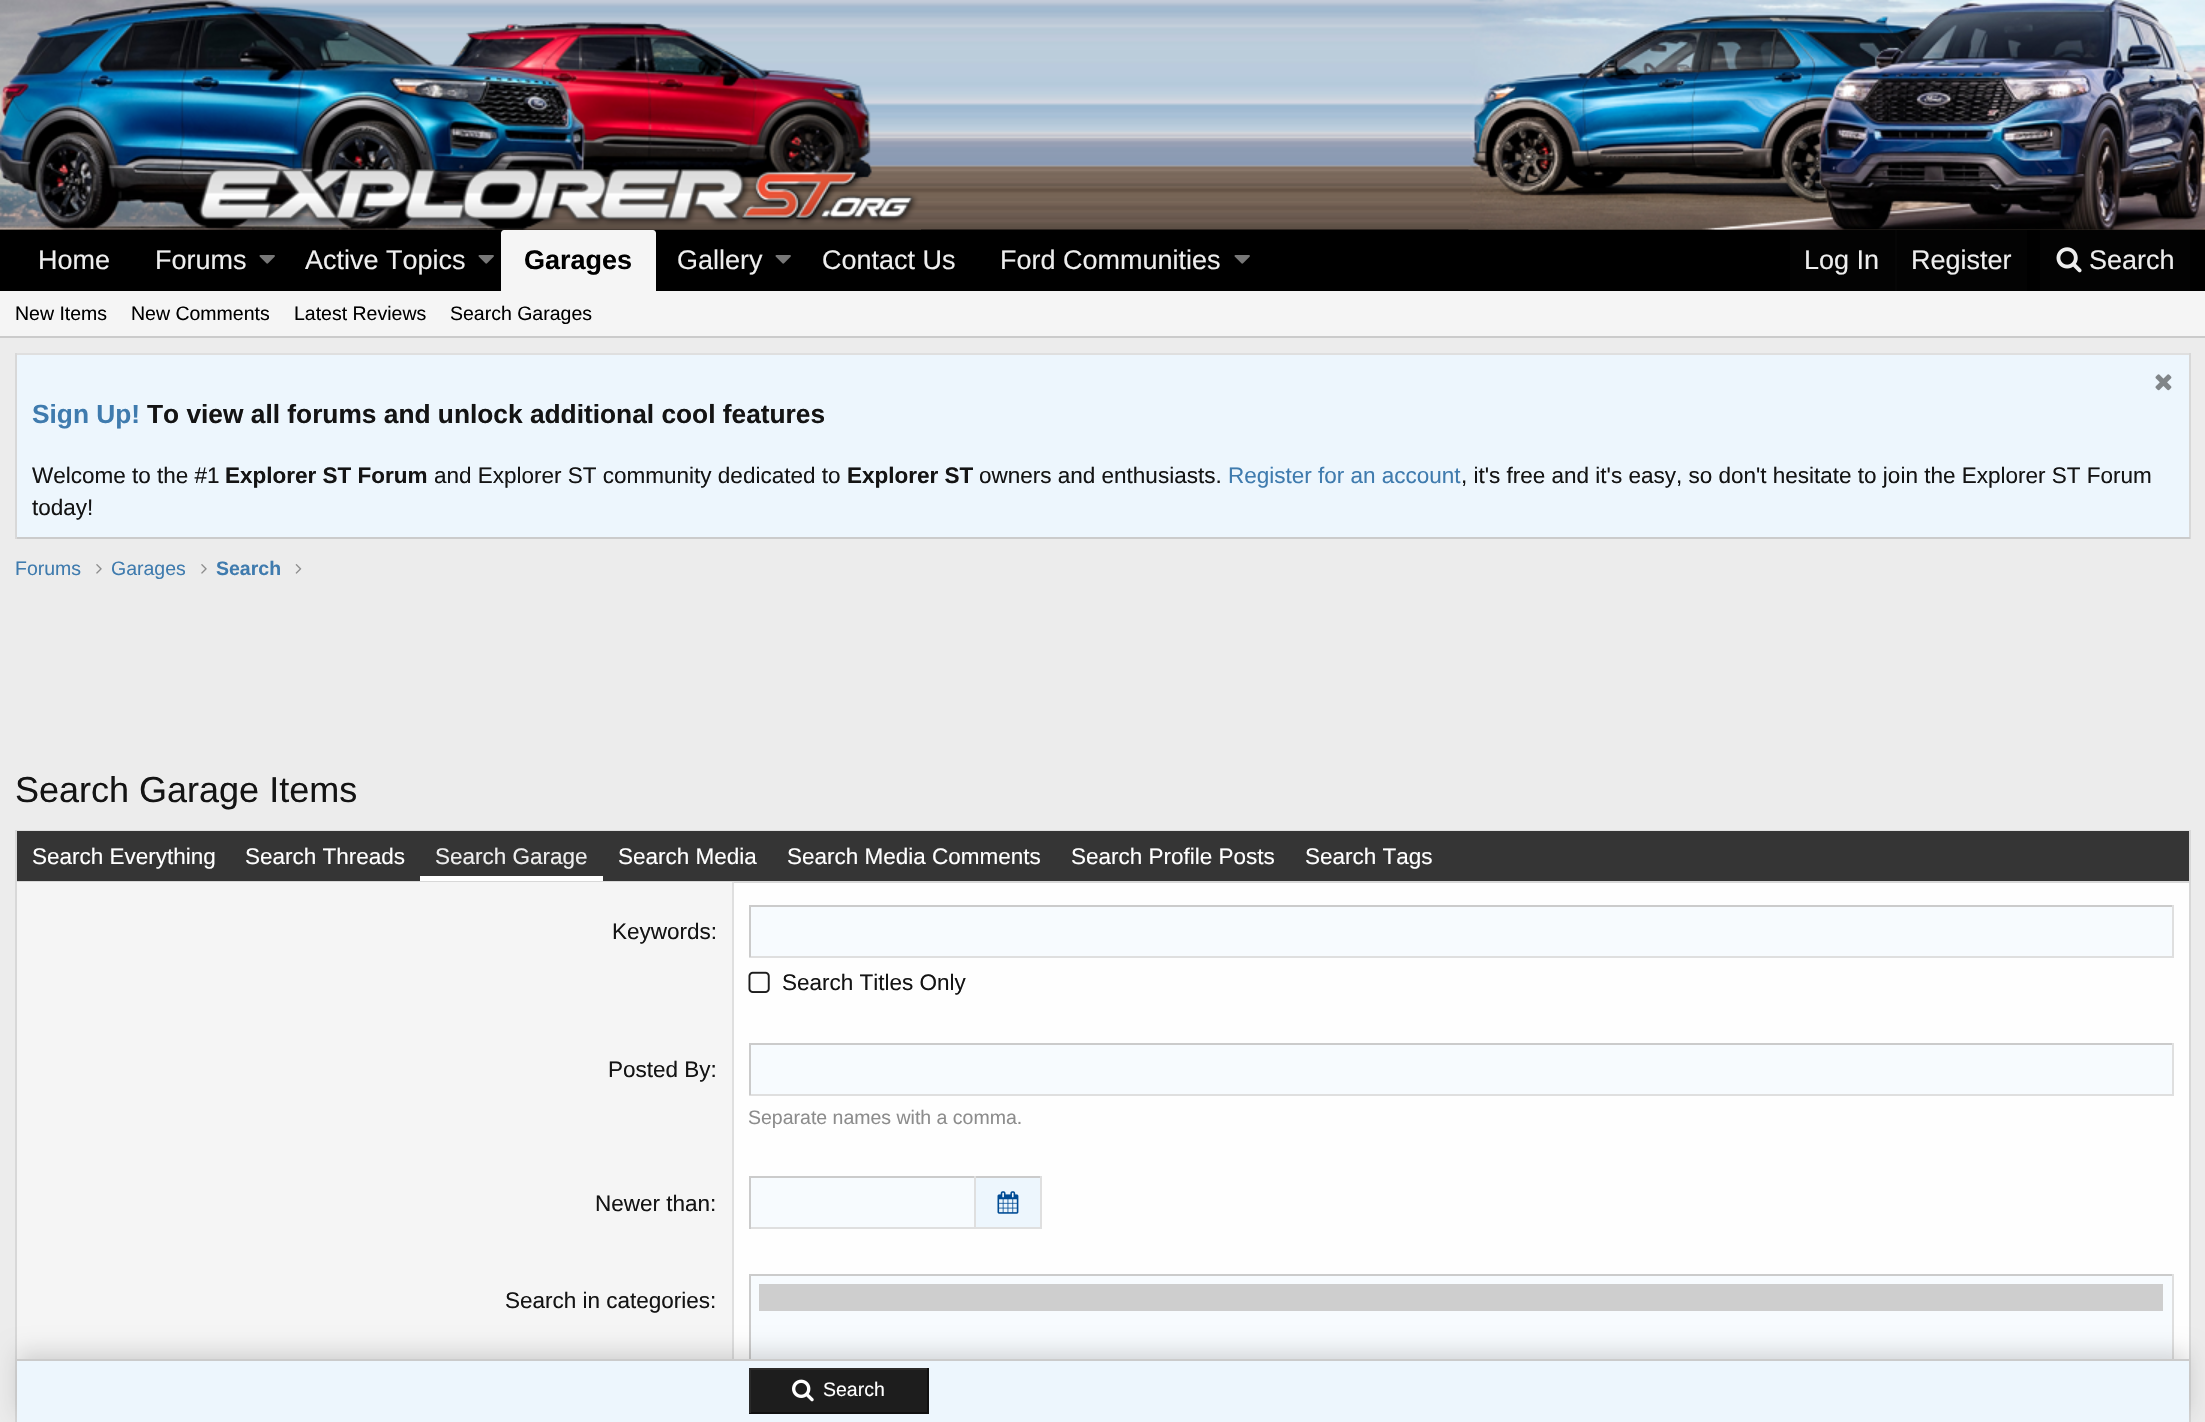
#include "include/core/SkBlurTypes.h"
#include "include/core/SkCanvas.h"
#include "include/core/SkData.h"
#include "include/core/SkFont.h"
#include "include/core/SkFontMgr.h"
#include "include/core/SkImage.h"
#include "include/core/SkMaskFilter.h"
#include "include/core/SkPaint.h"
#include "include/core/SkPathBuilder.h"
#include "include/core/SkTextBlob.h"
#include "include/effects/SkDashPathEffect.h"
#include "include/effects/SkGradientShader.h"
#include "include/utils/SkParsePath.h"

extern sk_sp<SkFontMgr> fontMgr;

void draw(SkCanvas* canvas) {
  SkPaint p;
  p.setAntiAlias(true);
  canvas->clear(SkColorSetRGB(236, 236, 236));
  p.setColor(SK_ColorBLACK);
  canvas->drawRect(SkRect::MakeLTRB(0, 229, 2205, 291), p);
  canvas->drawImageRect(SkImages::DeferredFromEncodedData(SkData::MakeFromFileName("images/1.png")), SkRect::MakeLTRB(0, 0, 2205, 230), SkSamplingOptions());
  canvas->drawImageRect(SkImages::DeferredFromEncodedData(SkData::MakeFromFileName("images/2.png")), SkRect::MakeLTRB(0, 0, 921, 230), SkSamplingOptions());
  canvas->drawImageRect(SkImages::DeferredFromEncodedData(SkData::MakeFromFileName("images/3.png")), SkRect::MakeLTRB(1468, 0, 2205, 230), SkSamplingOptions());
  canvas->drawImageRect(SkImages::DeferredFromEncodedData(SkData::MakeFromFileName("images/4.png")), SkRect::MakeLTRB(259, 255, 275, 264), SkSamplingOptions());
  canvas->drawImageRect(SkImages::DeferredFromEncodedData(SkData::MakeFromFileName("images/4.png")), SkRect::MakeLTRB(478, 255, 494, 264), SkSamplingOptions());
  p.setColor(SkColorSetRGB(245, 245, 245));
  canvas->drawPath(SkPathBuilder().moveTo(504, 230).lineTo(653, 230).cubicTo(654.5f, 230, 656, 231.5f, 656, 233).lineTo(656, 291).lineTo(501, 291).lineTo(501, 233).cubicTo(501, 231.5f, 502.5f, 230, 504, 230).close().detach(), p);
  canvas->drawImageRect(SkImages::DeferredFromEncodedData(SkData::MakeFromFileName("images/4.png")), SkRect::MakeLTRB(775, 255, 791, 264), SkSamplingOptions());
  canvas->drawImageRect(SkImages::DeferredFromEncodedData(SkData::MakeFromFileName("images/4.png")), SkRect::MakeLTRB(1234, 255, 1250, 264), SkSamplingOptions());
  p.setColor(SkColorSetRGB(3, 3, 3));
  canvas->drawRect(SkRect::MakeLTRB(1790, 230, 2027, 291), p);
  p.setColor(SkColorSetRGB(6, 6, 6));
  canvas->drawRect(SkRect::MakeLTRB(1895, 230, 1897, 291), p);
  p.setColor(SkColorSetRGB(3, 3, 3));
  canvas->drawRect(SkRect::MakeLTRB(2040, 230, 2190, 291), p);
  canvas->drawImageRect(SkImages::DeferredFromEncodedData(SkData::MakeFromFileName("images/5.png")), SkRect::MakeLTRB(2056, 247, 2082, 273), SkSamplingOptions());
  p.setColor(SkColorSetRGB(245, 245, 245));
  canvas->drawRect(SkRect::MakeLTRB(0, 291, 2205, 336), p);
  p.setColor(SkColorSetRGB(203, 203, 203));
  canvas->drawRect(SkRect::MakeLTRB(0, 336, 2205, 338), p);
  p.setColor(SkColorSetRGB(237, 246, 253));
  canvas->drawRect(SkRect::MakeLTRB(17, 355, 2189, 537), p);
  p.setColor(SkColorSetRGB(223, 223, 223));
  canvas->drawRect(SkRect::MakeLTRB(15, 353, 2190, 355), p);
  p.setColor(SkColorSetRGB(216, 216, 216));
  canvas->drawRect(SkRect::MakeLTRB(2189, 353, 2191, 539), p);
  p.setColor(SkColorSetRGB(203, 203, 203));
  canvas->drawRect(SkRect::MakeLTRB(15, 537, 2190, 539), p);
  p.setColor(SkColorSetRGB(216, 216, 216));
  canvas->drawRect(SkRect::MakeLTRB(15, 353, 17, 539), p);
  canvas->drawImageRect(SkImages::DeferredFromEncodedData(SkData::MakeFromFileName("images/6.png")), SkRect::MakeLTRB(2155, 374, 2172, 391), SkSamplingOptions());
  canvas->drawImageRect(SkImages::DeferredFromEncodedData(SkData::MakeFromFileName("images/7.png")), SkRect::MakeLTRB(96, 564, 102, 574), SkSamplingOptions());
  canvas->drawImageRect(SkImages::DeferredFromEncodedData(SkData::MakeFromFileName("images/7.png")), SkRect::MakeLTRB(201, 564, 207, 574), SkSamplingOptions());
  canvas->drawImageRect(SkImages::DeferredFromEncodedData(SkData::MakeFromFileName("images/8.png")), SkRect::MakeLTRB(295, 564, 302, 574), SkSamplingOptions());
  p.setColor(SkColorSetRGB(254, 254, 254));
  canvas->drawRect(SkRect::MakeLTRB(734, 883, 2189, 1359), p);
  p.setColor(SkColorSetRGB(223, 223, 223));
  canvas->drawRect(SkRect::MakeLTRB(15, 830, 2190, 831), p);
  p.setColor(SkColorSetRGB(216, 216, 216));
  canvas->drawRect(SkRect::MakeLTRB(2189, 830, 2191, 1422), p);
  canvas->drawRect(SkRect::MakeLTRB(15, 830, 17, 1422), p);
  p.setColor(SkColorSetRGB(53, 53, 53));
  canvas->drawRect(SkRect::MakeLTRB(17, 831, 2189, 881), p);
  p.setColor(SkColorSetRGB(216, 216, 216));
  canvas->drawRect(SkRect::MakeLTRB(17, 881, 2189, 883), p);
  p.setColor(SK_ColorWHITE);
  canvas->drawRect(SkRect::MakeLTRB(420, 876, 603, 881), p);
  p.setColor(SkColorSetRGB(245, 245, 245));
  canvas->drawRect(SkRect::MakeLTRB(17, 882, 732, 1359), p);
  p.setColor(SkColorSetRGB(223, 223, 223));
  canvas->drawRect(SkRect::MakeLTRB(732, 882, 734, 1359), p);
  p.setColor(SkColorSetRGB(247, 251, 254));
  canvas->drawRect(SkRect::MakeLTRB(751, 907, 2172, 956), p);
  p.setColor(SkColorSetRGB(203, 203, 203));
  canvas->drawRect(SkRect::MakeLTRB(749, 905, 2174, 907), p);
  p.setColor(SkColorSetRGB(223, 223, 223));
  canvas->drawRect(SkRect::MakeLTRB(2172, 905, 2174, 957), p);
  canvas->drawRect(SkRect::MakeLTRB(749, 956, 2174, 958), p);
  p.setColor(SkColorSetRGB(203, 203, 203));
  canvas->drawRect(SkRect::MakeLTRB(749, 905, 751, 957), p);
  canvas->drawImageRect(SkImages::DeferredFromEncodedData(SkData::MakeFromFileName("images/9.png")), SkRect::MakeLTRB(748, 971, 770, 993), SkSamplingOptions());
  p.setColor(SkColorSetRGB(247, 251, 254));
  canvas->drawRect(SkRect::MakeLTRB(751, 1045, 2172, 1094), p);
  p.setColor(SkColorSetRGB(203, 203, 203));
  canvas->drawRect(SkRect::MakeLTRB(749, 1043, 2174, 1045), p);
  p.setColor(SkColorSetRGB(223, 223, 223));
  canvas->drawRect(SkRect::MakeLTRB(2172, 1043, 2174, 1095), p);
  canvas->drawRect(SkRect::MakeLTRB(749, 1094, 2174, 1096), p);
  p.setColor(SkColorSetRGB(203, 203, 203));
  canvas->drawRect(SkRect::MakeLTRB(749, 1043, 751, 1095), p);
  p.setColor(SkColorSetRGB(247, 251, 254));
  canvas->drawRect(SkRect::MakeLTRB(751, 1178, 974, 1227), p);
  p.setColor(SkColorSetRGB(203, 203, 203));
  canvas->drawRect(SkRect::MakeLTRB(749, 1176, 1041, 1178), p);
  p.setColor(SkColorSetRGB(223, 223, 223));
  canvas->drawRect(SkRect::MakeLTRB(749, 1227, 974, 1229), p);
  p.setColor(SkColorSetRGB(203, 203, 203));
  canvas->drawRect(SkRect::MakeLTRB(749, 1176, 751, 1229), p);
  p.setColor(SkColorSetRGB(237, 246, 253));
  canvas->drawRect(SkRect::MakeLTRB(976, 1178, 1040, 1227), p);
  p.setColor(SkColorSetRGB(223, 223, 223));
  canvas->drawRect(SkRect::MakeLTRB(1040, 1176, 1042, 1229), p);
  canvas->drawRect(SkRect::MakeLTRB(974, 1227, 1041, 1229), p);
  canvas->drawRect(SkRect::MakeLTRB(974, 1176, 976, 1229), p);
  canvas->drawImageRect(SkImages::DeferredFromEncodedData(SkData::MakeFromFileName("images/10.png")), SkRect::MakeLTRB(997, 1191, 1019, 1214), SkSamplingOptions());
  p.setColor(SkColorSetRGB(247, 251, 254));
  canvas->drawRect(SkRect::MakeLTRB(751, 1276, 2172, 1359), p);
  p.setColor(SkColorSetRGB(203, 203, 203));
  canvas->drawRect(SkRect::MakeLTRB(749, 1274, 2174, 1276), p);
  p.setColor(SkColorSetRGB(223, 223, 223));
  canvas->drawRect(SkRect::MakeLTRB(2172, 1274, 2174, 1359), p);
  p.setColor(SkColorSetRGB(203, 203, 203));
  canvas->drawRect(SkRect::MakeLTRB(749, 1274, 751, 1359), p);
  p.setColor(SkColorSetRGB(206, 206, 206));
  canvas->drawRect(SkRect::MakeLTRB(759, 1284, 2163, 1311), p);
  p.setColor(SkColorSetARGB(38, 0, 0, 0));
  p.setMaskFilter(SkMaskFilter::MakeBlur(kNormal_SkBlurStyle, 11));
  canvas->drawRect(SkRect::MakeLTRB(17, 1352, 2189, 1415), p);
  p.setMaskFilter(nullptr);
  p.setColor(SkColorSetRGB(237, 246, 253));
  canvas->drawRect(SkRect::MakeLTRB(17, 1361, 2189, 1422), p);
  p.setColor(SkColorSetRGB(203, 203, 203));
  canvas->drawRect(SkRect::MakeLTRB(17, 1359, 2189, 1361), p);
  p.setColor(SkColorSetRGB(29, 29, 29));
  canvas->drawRect(SkRect::MakeLTRB(751, 1370, 927, 1412), p);
  p.setColor(SkColorSetRGB(42, 42, 42));
  canvas->drawRect(SkRect::MakeLTRB(749, 1368, 929, 1370), p);
  p.setColor(SkColorSetRGB(16, 16, 16));
  canvas->drawRect(SkRect::MakeLTRB(927, 1368, 929, 1413), p);
  canvas->drawRect(SkRect::MakeLTRB(749, 1412, 929, 1414), p);
  p.setColor(SkColorSetRGB(42, 42, 42));
  canvas->drawRect(SkRect::MakeLTRB(749, 1368, 751, 1413), p);
  canvas->drawImageRect(SkImages::DeferredFromEncodedData(SkData::MakeFromFileName("images/11.png")), SkRect::MakeLTRB(792, 1379, 814, 1402), SkSamplingOptions());
  SkFont font1(fontMgr->matchFamilyStyle("Liberation Sans", SkFontStyle::Normal()), 27);
  font1.setSubpixel(true);
  p.setColor(SkColorSetRGB(238, 238, 238));
  canvas->drawString("Home", 38, 269, font1, p);
  canvas->drawString("Forums", 155, 269, font1, p);
  canvas->drawString("Active Topics", 305, 269, font1, p);
  SkFont font2(fontMgr->matchFamilyStyle("Liberation Sans", SkFontStyle::Bold()), 27);
  font2.setSubpixel(true);
  p.setColor(SK_ColorBLACK);
  canvas->drawString("Garages", 524, 269, font2, p);
  p.setColor(SkColorSetRGB(238, 238, 238));
  canvas->drawString("Gallery", 677, 269, font1, p);
  canvas->drawString("Contact Us", 822, 269, font1, p);
  canvas->drawString("Ford Communities", 1000, 269, font1, p);
  canvas->drawString("Log In", 1804, 269, font1, p);
  canvas->drawString("Register", 1911, 269, font1, p);
  canvas->drawString("Search", 2089, 269, font1, p);
  SkFont font3(fontMgr->matchFamilyStyle("Liberation Sans", SkFontStyle::Normal()), 19.5f);
  font3.setSubpixel(true);
  p.setColor(SK_ColorBLACK);
  canvas->drawString("New Items", 15, 320, font3, p);
  canvas->drawString("New Comments", 131, 320, font3, p);
  canvas->drawString("Latest Reviews", 294, 320, font3, p);
  canvas->drawString("Search Garages", 450, 320, font3, p);
  SkFont font4(fontMgr->matchFamilyStyle("Liberation Sans", SkFontStyle::Bold()), 26.3f);
  font4.setSubpixel(true);
  p.setColor(SkColorSetRGB(63, 123, 174));
  canvas->drawString("Sign Up!", 32, 423, font4, p);
  p.setColor(SkColorSetRGB(20, 20, 20));
  canvas->drawString("To view all forums and unlock additional cool features", 147, 423, font4, p);
  SkFont font5(fontMgr->matchFamilyStyle("Liberation Sans", SkFontStyle::Normal()), 22.5f);
  font5.setSubpixel(true);
  canvas->drawString("Welcome to the #1", 32, 483, font5, p);
  SkFont font6(fontMgr->matchFamilyStyle("Liberation Sans", SkFontStyle::Bold()), 22.5f);
  font6.setSubpixel(true);
  canvas->drawString("Explorer ST Forum", 225, 483, font6, p);
  canvas->drawString("and Explorer ST community dedicated to", 434, 483, font5, p);
  canvas->drawString("Explorer ST", 847, 483, font6, p);
  canvas->drawString("owners and enthusiasts.", 979, 483, font5, p);
  p.setColor(SkColorSetRGB(63, 123, 174));
  canvas->drawString("Register for an account", 1228, 483, font5, p);
  p.setColor(SkColorSetRGB(20, 20, 20));
  canvas->drawString(", it's free and it's easy, so don't hesitate to join the Explorer ST Forum", 1461, 483, font5, p);
  canvas->drawString("today!", 32, 515, font5, p);
  p.setColor(SkColorSetRGB(63, 123, 174));
  canvas->drawString("Forums", 15, 575, font3, p);
  canvas->drawString("Garages", 111, 575, font3, p);
  SkFont font7(fontMgr->matchFamilyStyle("Liberation Sans", SkFontStyle::Bold()), 19.5f);
  font7.setSubpixel(true);
  canvas->drawString("Search", 216, 575, font7, p);
  SkFont font8(fontMgr->matchFamilyStyle("Liberation Sans", SkFontStyle::Normal()), 36);
  font8.setSubpixel(true);
  p.setColor(SkColorSetRGB(20, 20, 20));
  canvas->drawString("Search Garage Items", 15, 802, font8, p);
  p.setColor(SK_ColorWHITE);
  canvas->drawString("Search Everything", 32, 864, font5, p);
  canvas->drawString("Search Threads", 245, 864, font5, p);
  p.setColor(SkColorSetRGB(238, 238, 238));
  canvas->drawString("Search Garage", 435, 864, font5, p);
  p.setColor(SK_ColorWHITE);
  canvas->drawString("Search Media", 618, 864, font5, p);
  canvas->drawString("Search Media Comments", 787, 864, font5, p);
  canvas->drawString("Search Profile Posts", 1071, 864, font5, p);
  canvas->drawString("Search Tags", 1305, 864, font5, p);
  p.setColor(SkColorSetRGB(20, 20, 20));
  canvas->drawString("Keywords:", 612, 939, font5, p);
  canvas->drawString("Search Titles Only", 782, 990, font5, p);
  canvas->drawString("Posted By:", 608, 1077, font5, p);
  p.setColor(SkColorSetRGB(140, 140, 140));
  canvas->drawString("Separate names with a comma.", 748, 1124, font3, p);
  p.setColor(SkColorSetRGB(20, 20, 20));
  canvas->drawString("Newer than:", 595, 1211, font5, p);
  canvas->drawString("Search in categories:", 505, 1308, font5, p);
  p.setColor(SK_ColorWHITE);
  canvas->drawString("Search", 823, 1396, font3, p);
}
